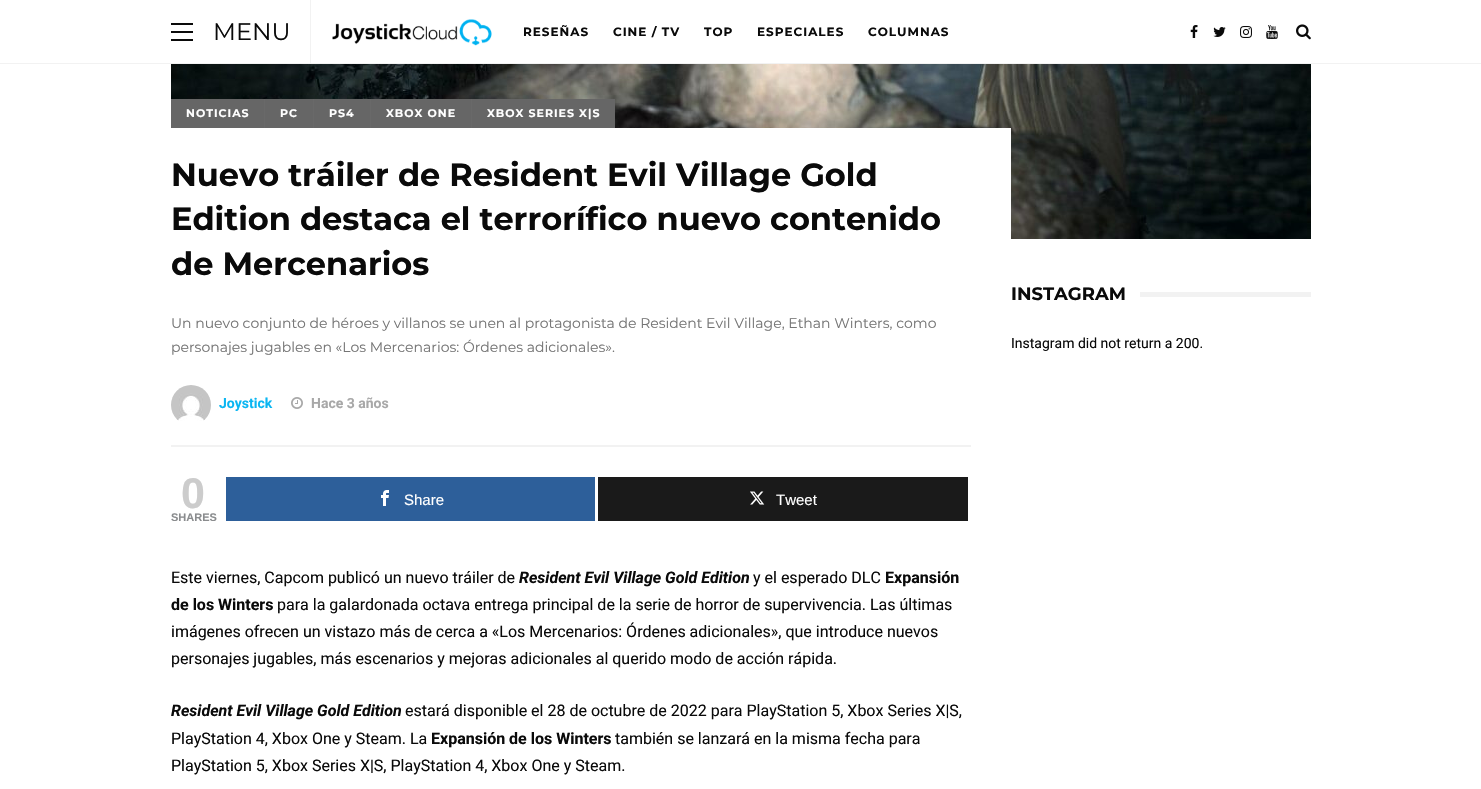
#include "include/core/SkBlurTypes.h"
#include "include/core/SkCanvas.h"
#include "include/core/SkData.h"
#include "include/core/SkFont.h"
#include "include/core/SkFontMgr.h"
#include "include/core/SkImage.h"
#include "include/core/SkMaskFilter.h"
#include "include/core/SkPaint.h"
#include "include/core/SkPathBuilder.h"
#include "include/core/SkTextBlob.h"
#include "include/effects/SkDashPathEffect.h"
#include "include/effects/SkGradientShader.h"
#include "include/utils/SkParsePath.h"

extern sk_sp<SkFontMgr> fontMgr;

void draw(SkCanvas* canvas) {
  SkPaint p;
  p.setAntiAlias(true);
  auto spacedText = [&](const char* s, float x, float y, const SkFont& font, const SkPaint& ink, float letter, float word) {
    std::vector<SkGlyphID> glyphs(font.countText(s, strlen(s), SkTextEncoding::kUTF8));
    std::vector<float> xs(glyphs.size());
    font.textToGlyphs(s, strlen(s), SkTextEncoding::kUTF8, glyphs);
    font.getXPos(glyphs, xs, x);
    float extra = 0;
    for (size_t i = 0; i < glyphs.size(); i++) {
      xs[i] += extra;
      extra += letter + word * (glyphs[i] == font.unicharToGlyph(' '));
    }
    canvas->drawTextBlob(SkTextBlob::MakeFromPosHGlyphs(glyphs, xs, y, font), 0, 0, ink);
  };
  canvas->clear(SK_ColorWHITE);
  p.setColor(SkColorSetRGB(242, 242, 242));
  canvas->drawRect(SkRect::MakeLTRB(0, 63, 1481, 64), p);
  canvas->drawRect(SkRect::MakeLTRB(310, 0, 311, 63), p);
  p.setColor(SkColorSetRGB(10, 10, 10));
  canvas->drawRect(SkRect::MakeLTRB(171, 31, 193, 33), p);
  canvas->drawRect(SkRect::MakeLTRB(171, 23, 193, 25), p);
  canvas->drawRect(SkRect::MakeLTRB(171, 39, 193, 41), p);
  canvas->drawImageRect(SkImages::DeferredFromEncodedData(SkData::MakeFromFileName("images/1.png")), SkRect::MakeLTRB(332, 19, 492, 46), SkSamplingOptions());
  canvas->drawImageRect(SkImages::DeferredFromEncodedData(SkData::MakeFromFileName("images/2.png")), SkRect::MakeLTRB(1190, 25, 1198, 38), SkSamplingOptions());
  canvas->drawImageRect(SkImages::DeferredFromEncodedData(SkData::MakeFromFileName("images/3.png")), SkRect::MakeLTRB(1213, 27, 1226, 37), SkSamplingOptions());
  canvas->drawImageRect(SkImages::DeferredFromEncodedData(SkData::MakeFromFileName("images/4.png")), SkRect::MakeLTRB(1240, 26, 1252, 38), SkSamplingOptions());
  canvas->drawImageRect(SkImages::DeferredFromEncodedData(SkData::MakeFromFileName("images/5.png")), SkRect::MakeLTRB(1266, 25, 1278, 39), SkSamplingOptions());
  canvas->drawImageRect(SkImages::DeferredFromEncodedData(SkData::MakeFromFileName("images/6.png")), SkRect::MakeLTRB(1296, 24, 1311, 40), SkSamplingOptions());
  canvas->drawImageRect(SkImages::DeferredFromEncodedData(SkData::MakeFromFileName("images/7.png")), SkRect::MakeLTRB(171, 64, 1311, 239), SkSamplingOptions());
  p.setColor(SkColorSetRGB(102, 102, 102));
  canvas->drawRect(SkRect::MakeLTRB(171, 99, 264, 128), p);
  p.setColor(SkColorSetRGB(105, 105, 105));
  canvas->drawRect(SkRect::MakeLTRB(264, 99, 265, 128), p);
  p.setColor(SkColorSetRGB(102, 102, 102));
  canvas->drawRect(SkRect::MakeLTRB(265, 99, 313, 128), p);
  p.setColor(SkColorSetRGB(105, 105, 105));
  canvas->drawRect(SkRect::MakeLTRB(313, 99, 314, 128), p);
  p.setColor(SkColorSetRGB(102, 102, 102));
  canvas->drawRect(SkRect::MakeLTRB(314, 99, 370, 128), p);
  p.setColor(SkColorSetRGB(105, 105, 105));
  canvas->drawRect(SkRect::MakeLTRB(370, 99, 371, 128), p);
  p.setColor(SkColorSetRGB(102, 102, 102));
  canvas->drawRect(SkRect::MakeLTRB(371, 99, 471, 128), p);
  p.setColor(SkColorSetRGB(105, 105, 105));
  canvas->drawRect(SkRect::MakeLTRB(471, 99, 472, 128), p);
  p.setColor(SkColorSetRGB(102, 102, 102));
  canvas->drawRect(SkRect::MakeLTRB(472, 99, 615, 128), p);
  p.setColor(SK_ColorWHITE);
  canvas->drawRect(SkRect::MakeLTRB(171, 128, 1011, 239), p);
  canvas->drawImageRect(SkImages::DeferredFromEncodedData(SkData::MakeFromFileName("images/8.png")), SkRect::MakeLTRB(171, 385, 211, 421), SkSamplingOptions());
  canvas->drawImageRect(SkImages::DeferredFromEncodedData(SkData::MakeFromFileName("images/9.png")), SkRect::MakeLTRB(291, 397, 303, 409), SkSamplingOptions());
  p.setColor(SkColorSetRGB(242, 242, 242));
  canvas->drawRect(SkRect::MakeLTRB(171, 445, 971, 447), p);
  p.setColor(SkColorSetRGB(45, 95, 154));
  canvas->drawRect(SkRect::MakeLTRB(226, 477, 595, 521), p);
  canvas->drawImageRect(SkImages::DeferredFromEncodedData(SkData::MakeFromFileName("images/10.png")), SkRect::MakeLTRB(381, 490, 389, 506), SkSamplingOptions());
  p.setColor(SkColorSetRGB(26, 26, 26));
  canvas->drawRect(SkRect::MakeLTRB(598, 477, 968, 521), p);
  canvas->drawImageRect(SkImages::DeferredFromEncodedData(SkData::MakeFromFileName("images/11.png")), SkRect::MakeLTRB(750, 491, 765, 505), SkSamplingOptions());
  p.setColor(SkColorSetRGB(242, 242, 242));
  canvas->drawRect(SkRect::MakeLTRB(1140, 292, 1311, 297), p);
  SkFont font1(fontMgr->matchFamilyStyle("Montserrat", SkFontStyle::Normal()), 24);
  font1.setSubpixel(true);
  p.setColor(SkColorSetRGB(10, 10, 10));
  canvas->drawString("MENU", 213, 40, font1, p);
  SkFont font2(fontMgr->matchFamilyStyle("Montserrat", SkFontStyle::Bold()), 12);
  font2.setSubpixel(true);
  spacedText("RESEÑAS", 523, 36, font2, p, 1, 0);
  spacedText("CINE / TV", 613, 36, font2, p, 1, 0);
  spacedText("TOP", 704, 36, font2, p, 1, 0);
  spacedText("ESPECIALES", 757, 36, font2, p, 1, 0);
  spacedText("COLUMNAS", 868, 36, font2, p, 1, 0);
  SkFont font3(fontMgr->matchFamilyStyle("Montserrat", SkFontStyle::Bold()), 11);
  font3.setSubpixel(true);
  p.setColor(SK_ColorWHITE);
  spacedText("NOTICIAS", 186, 117, font3, p, 1, 0);
  spacedText("PC", 280, 117, font3, p, 1, 0);
  spacedText("PS4", 329, 117, font3, p, 1, 0);
  spacedText("XBOX ONE", 386, 117, font3, p, 1, 0);
  spacedText("XBOX SERIES X|S", 487, 117, font3, p, 1, 0);
  SkFont font4(fontMgr->matchFamilyStyle("Montserrat", SkFontStyle::Bold()), 32);
  font4.setSubpixel(true);
  p.setColor(SkColorSetRGB(10, 10, 10));
  canvas->drawString("Nuevo tráiler de Resident Evil Village Gold", 171, 186, font4, p);
  canvas->drawString("Edition destaca el terrorífico nuevo contenido", 171, 230, font4, p);
  canvas->drawString("de Mercenarios", 171, 275, font4, p);
  SkFont font5(fontMgr->matchFamilyStyle("Montserrat", SkFontStyle::Normal()), 14);
  font5.setSubpixel(true);
  p.setColor(SkColorSetRGB(117, 117, 117));
  canvas->drawString("Un nuevo conjunto de héroes y villanos se unen al protagonista de Resident Evil Village, Ethan Winters, como", 171, 328, font5, p);
  canvas->drawString("personajes jugables en «Los Mercenarios: Órdenes adicionales».", 171, 352, font5, p);
  SkFont font6(fontMgr->matchFamilyStyle("Roboto", SkFontStyle::Bold()), 14);
  font6.setSubpixel(true);
  p.setColor(SkColorSetRGB(10, 182, 242));
  canvas->drawString("Joystick", 219, 408, font6, p);
  p.setColor(SkColorSetRGB(168, 168, 168));
  canvas->drawString("Hace 3 años", 311, 408, font6, p);
  SkFont font7(fontMgr->matchFamilyStyle("Liberation Sans", SkFontStyle::Bold()), 43);
  font7.setSubpixel(true);
  p.setColor(SkColorSetRGB(204, 204, 204));
  canvas->drawString("0", 181, 508, font7, p);
  SkFont font8(fontMgr->matchFamilyStyle("Liberation Sans", SkFontStyle::Bold()), 11);
  font8.setSubpixel(true);
  p.setColor(SkColorSetRGB(138, 140, 142));
  canvas->drawString("SHARES", 171, 521, font8, p);
  SkFont font9(fontMgr->matchFamilyStyle("Liberation Sans", SkFontStyle::Normal()), 15);
  font9.setSubpixel(true);
  p.setColor(SK_ColorWHITE);
  canvas->drawString("Share", 404, 505, font9, p);
  canvas->drawString("Tweet", 776, 505, font9, p);
  SkFont font10(fontMgr->matchFamilyStyle("Roboto", SkFontStyle::Normal()), 16);
  font10.setSubpixel(true);
  p.setColor(SkColorSetRGB(10, 10, 10));
  canvas->drawString("Este viernes, Capcom publicó un nuevo tráiler de", 171, 583, font10, p);
  SkFont font11(fontMgr->matchFamilyStyle("Roboto", SkFontStyle::BoldItalic()), 16);
  font11.setSubpixel(true);
  canvas->drawString("Resident Evil Village Gold Edition", 519, 583, font11, p);
  canvas->drawString("y el esperado DLC", 753, 583, font10, p);
  SkFont font12(fontMgr->matchFamilyStyle("Roboto", SkFontStyle::Bold()), 16);
  font12.setSubpixel(true);
  canvas->drawString("Expansión", 885, 583, font12, p);
  canvas->drawString("de los Winters", 171, 610, font12, p);
  canvas->drawString("para la galardonada octava entrega principal de la serie de horror de supervivencia. Las últimas", 277, 610, font10, p);
  canvas->drawString("imágenes ofrecen un vistazo más de cerca a «Los Mercenarios: Órdenes adicionales», que introduce nuevos", 171, 637, font10, p);
  canvas->drawString("personajes jugables, más escenarios y mejoras adicionales al querido modo de acción rápida.", 171, 664, font10, p);
  canvas->drawString("Resident Evil Village Gold Edition", 171, 716, font11, p);
  canvas->drawString("estará disponible el 28 de octubre de 2022 para PlayStation 5, Xbox Series X|S,", 405, 716, font10, p);
  canvas->drawString("PlayStation 4, Xbox One y Steam. La", 171, 744, font10, p);
  canvas->drawString("Expansión de los Winters", 431, 744, font12, p);
  canvas->drawString("también se lanzará en la misma fecha para", 615, 744, font10, p);
  canvas->drawString("PlayStation 5, Xbox Series X|S, PlayStation 4, Xbox One y Steam.", 171, 771, font10, p);
  SkFont font13(fontMgr->matchFamilyStyle("Montserrat", SkFontStyle::Bold()), 18);
  font13.setSubpixel(true);
  canvas->drawString("INSTAGRAM", 1011, 300, font13, p);
  SkFont font14(fontMgr->matchFamilyStyle("Roboto", SkFontStyle::Normal()), 14);
  font14.setSubpixel(true);
  canvas->drawString("Instagram did not return a 200.", 1011, 348, font14, p);
}
